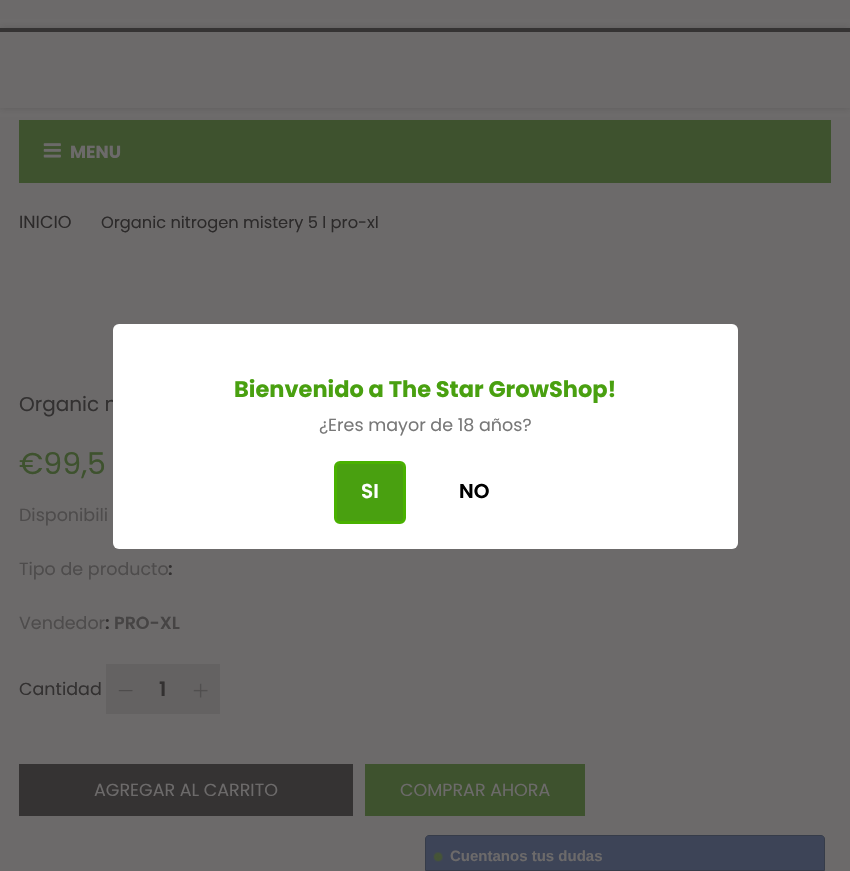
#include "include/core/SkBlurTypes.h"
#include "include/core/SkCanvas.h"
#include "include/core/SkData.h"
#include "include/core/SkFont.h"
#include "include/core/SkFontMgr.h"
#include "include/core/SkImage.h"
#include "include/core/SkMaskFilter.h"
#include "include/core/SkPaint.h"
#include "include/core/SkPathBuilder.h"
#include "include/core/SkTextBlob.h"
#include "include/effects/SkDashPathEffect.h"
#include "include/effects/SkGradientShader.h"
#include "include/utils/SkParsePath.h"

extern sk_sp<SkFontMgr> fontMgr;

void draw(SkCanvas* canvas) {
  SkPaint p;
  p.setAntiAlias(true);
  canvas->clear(SkColorSetRGB(108, 106, 106));
  p.setColor(SkColorSetARGB(51, 44, 42, 42));
  p.setMaskFilter(SkMaskFilter::MakeBlur(kNormal_SkBlurStyle, 3));
  canvas->drawRect(SkRect::MakeLTRB(0, 28, 850, 108), p);
  p.setMaskFilter(nullptr);
  p.setColor(SkColorSetRGB(108, 106, 106));
  canvas->drawRect(SkRect::MakeLTRB(0, 32, 850, 108), p);
  p.setColor(SkColorSetRGB(53, 51, 51));
  canvas->drawRect(SkRect::MakeLTRB(0, 28, 850, 32), p);
  p.setColor(SkColorSetRGB(62, 82, 46));
  canvas->drawRect(SkRect::MakeLTRB(19, 120, 831, 183), p);
  canvas->drawImageRect(SkImages::DeferredFromEncodedData(SkData::MakeFromFileName("images/1.png")), SkRect::MakeLTRB(43, 143, 61, 158), SkSamplingOptions());
  p.setColor(SkColorSetRGB(100, 98, 98));
  canvas->drawRect(SkRect::MakeLTRB(106, 664, 220, 714), p);
  canvas->drawImageRect(SkImages::DeferredFromEncodedData(SkData::MakeFromFileName("images/2.png")), SkRect::MakeLTRB(118, 690, 133, 692), SkSamplingOptions());
  canvas->drawImageRect(SkImages::DeferredFromEncodedData(SkData::MakeFromFileName("images/3.png")), SkRect::MakeLTRB(193, 683, 208, 698), SkSamplingOptions());
  p.setColor(SkColorSetRGB(53, 51, 51));
  canvas->drawRect(SkRect::MakeLTRB(19, 764, 353, 816), p);
  p.setColor(SkColorSetRGB(62, 82, 46));
  canvas->drawRect(SkRect::MakeLTRB(365, 764, 585, 816), p);
  p.setColor(SkColorSetRGB(61, 68, 87));
  canvas->drawPath(SkPathBuilder().moveTo(429, 835.5f).lineTo(821, 835.5f).cubicTo(823, 835.5f, 824.5f, 837, 824.5f, 839).lineTo(824.5f, 870.5f).lineTo(425.5f, 870.5f).lineTo(425.5f, 839).cubicTo(425.5f, 837, 427, 835.5f, 429, 835.5f).close().detach(), p);
  p.setStyle(SkPaint::kStroke_Style);
  p.setStrokeWidth(1);
  p.setColor(SkColorSetRGB(54, 60, 73));
  canvas->drawPath(SkPathBuilder().moveTo(429, 835.5f).lineTo(821, 835.5f).cubicTo(823, 835.5f, 824.5f, 837, 824.5f, 839).lineTo(824.5f, 870.5f).lineTo(425.5f, 870.5f).lineTo(425.5f, 839).cubicTo(425.5f, 837, 427, 835.5f, 429, 835.5f).close().detach(), p);
  canvas->drawImageRect(SkImages::DeferredFromEncodedData(SkData::MakeFromFileName("images/4.png")), SkRect::MakeLTRB(433, 852, 443, 862), SkSamplingOptions());
  SkFont font1(fontMgr->matchFamilyStyle("Poppins", SkFontStyle::Bold()), 17.5f);
  font1.setSubpixel(true);
  p.setStyle(SkPaint::kFill_Style);
  p.setColor(SkColorSetRGB(108, 106, 106));
  canvas->drawString("MENU", 70, 158, font1, p);
  SkFont font2(fontMgr->matchFamilyStyle("Poppins", SkFontStyle::Normal()), 17.5f);
  font2.setSubpixel(true);
  p.setColor(SkColorSetRGB(44, 42, 42));
  canvas->drawString("INICIO", 19, 228, font2, p);
  SkFont font3(fontMgr->matchFamilyStyle("Poppins", SkFontStyle::Normal()), 16.25f);
  font3.setSubpixel(true);
  canvas->drawString("Organic nitrogen mistery 5 l pro-xl", 101, 228, font3, p);
  SkFont font4(fontMgr->matchFamilyStyle("Poppins", SkFontStyle::Normal()), 20);
  font4.setSubpixel(true);
  p.setColor(SkColorSetRGB(51, 49, 49));
  canvas->drawString("Organic n", 19, 411, font4, p);
  SkFont font5(fontMgr->matchFamilyStyle("Poppins", SkFontStyle::Normal()), 30);
  font5.setSubpixel(true);
  p.setColor(SkColorSetRGB(62, 82, 46));
  canvas->drawString("€99,5", 19, 474, font5, p);
  p.setColor(SkColorSetRGB(78, 76, 76));
  canvas->drawString("Disponibili", 19, 521, font2, p);
  canvas->drawString("Tipo de producto", 19, 575, font2, p);
  SkFont font6(fontMgr->matchFamilyStyle("Poppins", SkFontStyle(600, SkFontStyle::kNormal_Width, SkFontStyle::kUpright_Slant)), 17.5f);
  font6.setSubpixel(true);
  p.setColor(SkColorSetRGB(51, 49, 49));
  canvas->drawString(":", 168, 575, font6, p);
  p.setColor(SkColorSetRGB(78, 76, 76));
  canvas->drawString("Vendedor", 19, 629, font2, p);
  p.setColor(SkColorSetRGB(51, 49, 49));
  canvas->drawString(":", 105, 629, font6, p);
  p.setColor(SkColorSetRGB(70, 68, 68));
  canvas->drawString("PRO-XL", 114, 629, font6, p);
  p.setColor(SkColorSetRGB(51, 49, 49));
  canvas->drawString("Cantidad", 19, 695, font2, p);
  SkFont font7(fontMgr->matchFamilyStyle("Poppins", SkFontStyle(600, SkFontStyle::kNormal_Width, SkFontStyle::kUpright_Slant)), 20);
  font7.setSubpixel(true);
  canvas->drawString("1", 159, 696, font7, p);
  p.setColor(SkColorSetRGB(108, 106, 106));
  canvas->drawString("AGREGAR AL CARRITO", 94, 796, font2, p);
  canvas->drawString("COMPRAR AHORA", 400, 796, font2, p);
  SkFont font8(fontMgr->matchFamilyStyle("Liberation Sans", SkFontStyle::Bold()), 15);
  font8.setSubpixel(true);
  canvas->drawString("Cuentanos tus dudas", 450, 861, font8, p);
  p.setColor(SK_ColorWHITE);
  canvas->drawRoundRect(SkRect::MakeLTRB(113, 324, 738, 549), 6, 6, p);
  SkFont font9(fontMgr->matchFamilyStyle("Poppins", SkFontStyle::Bold()), 22.5f);
  font9.setSubpixel(true);
  p.setColor(SkColorSetRGB(73, 160, 16));
  canvas->drawString("Bienvenido a The Star GrowShop!", 234, 397, font9, p);
  p.setColor(SkColorSetRGB(120, 120, 120));
  canvas->drawString("¿Eres mayor de 18 años?", 319, 431, font2, p);
  p.setColor(SkColorSetRGB(73, 160, 16));
  canvas->drawRoundRect(SkRect::MakeLTRB(335.5f, 462.5f, 404.5f, 522.5f), 4.5f, 4.5f, p);
  p.setStyle(SkPaint::kStroke_Style);
  p.setStrokeWidth(3);
  p.setColor(SkColorSetRGB(73, 177, 0));
  canvas->drawRoundRect(SkRect::MakeLTRB(335.5f, 462.5f, 404.5f, 522.5f), 4.5f, 4.5f, p);
  p.setStyle(SkPaint::kFill_Style);
  p.setColor(SK_ColorWHITE);
  canvas->drawString("SI", 361, 498, font7, p);
  p.setColor(SK_ColorBLACK);
  canvas->drawString("NO", 459, 498, font7, p);
}
